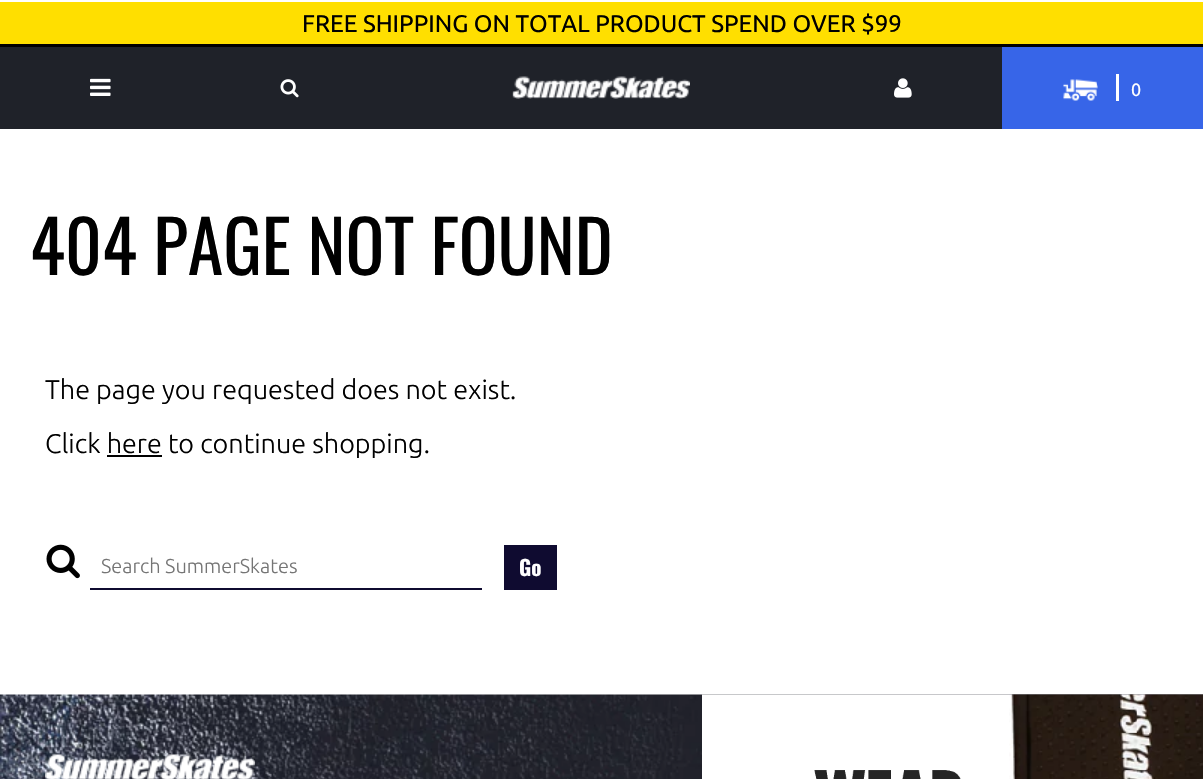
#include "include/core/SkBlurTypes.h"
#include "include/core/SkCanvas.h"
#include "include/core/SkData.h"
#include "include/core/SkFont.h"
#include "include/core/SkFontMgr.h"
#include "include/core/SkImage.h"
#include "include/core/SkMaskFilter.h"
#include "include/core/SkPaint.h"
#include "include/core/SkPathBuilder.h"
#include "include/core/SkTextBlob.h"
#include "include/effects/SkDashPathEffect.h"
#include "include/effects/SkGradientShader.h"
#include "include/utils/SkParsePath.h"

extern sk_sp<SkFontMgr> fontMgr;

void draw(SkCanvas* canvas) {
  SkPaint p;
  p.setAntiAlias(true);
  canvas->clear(SK_ColorWHITE);
  p.setColor(SkColorSetRGB(255, 223, 0));
  canvas->drawRect(SkRect::MakeLTRB(0, 2, 1203, 44), p);
  p.setColor(SK_ColorBLACK);
  canvas->drawRect(SkRect::MakeLTRB(0, 44, 1203, 47), p);
  p.setColor(SkColorSetRGB(31, 34, 41));
  canvas->drawRect(SkRect::MakeLTRB(0, 47, 1002, 129), p);
  canvas->drawImageRect(SkImages::DeferredFromEncodedData(SkData::MakeFromFileName("images/1.png")), SkRect::MakeLTRB(90, 78, 111, 96), SkSamplingOptions());
  canvas->drawImageRect(SkImages::DeferredFromEncodedData(SkData::MakeFromFileName("images/2.png")), SkRect::MakeLTRB(280, 79, 299, 98), SkSamplingOptions());
  canvas->drawImageRect(SkImages::DeferredFromEncodedData(SkData::MakeFromFileName("images/3.png")), SkRect::MakeLTRB(512, 76, 690, 99), SkSamplingOptions());
  canvas->drawImageRect(SkImages::DeferredFromEncodedData(SkData::MakeFromFileName("images/4.png")), SkRect::MakeLTRB(894, 78, 912, 98), SkSamplingOptions());
  p.setColor(SkColorSetRGB(55, 101, 232));
  canvas->drawRect(SkRect::MakeLTRB(1002, 47, 1203, 129), p);
  canvas->drawImageRect(SkImages::DeferredFromEncodedData(SkData::MakeFromFileName("images/5.png")), SkRect::MakeLTRB(1063, 79, 1098, 101), SkSamplingOptions());
  p.setColor(SK_ColorWHITE);
  canvas->drawRect(SkRect::MakeLTRB(1116, 74, 1119, 101), p);
  p.setColor(SK_ColorBLACK);
  canvas->drawRect(SkRect::MakeLTRB(107, 455, 162, 457), p);
  canvas->drawImageRect(SkImages::DeferredFromEncodedData(SkData::MakeFromFileName("images/6.png")), SkRect::MakeLTRB(46, 544, 80, 579), SkSamplingOptions());
  p.setColor(SkColorSetRGB(15, 11, 48));
  canvas->drawRect(SkRect::MakeLTRB(90, 588, 482, 590), p);
  canvas->drawRect(SkRect::MakeLTRB(504, 545, 557, 590), p);
  canvas->drawImageRect(SkImages::DeferredFromEncodedData(SkData::MakeFromFileName("images/7.png")), SkRect::MakeLTRB(0, 694, 1203, 779), SkSamplingOptions());
  canvas->drawImageRect(SkImages::DeferredFromEncodedData(SkData::MakeFromFileName("images/8.png")), SkRect::MakeLTRB(45, 754, 255, 779), SkSamplingOptions());
  canvas->drawImageRect(SkImages::DeferredFromEncodedData(SkData::MakeFromFileName("images/9.png")), SkRect::MakeLTRB(702, 694, 1203, 779), SkSamplingOptions());
  canvas->drawImageRect(SkImages::DeferredFromEncodedData(SkData::MakeFromFileName("images/10.png")), SkRect::MakeLTRB(814, 770, 961, 779), SkSamplingOptions());
  SkFont font1(fontMgr->matchFamilyStyle("Ubuntu", SkFontStyle::Normal()), 24);
  font1.setSubpixel(true);
  p.setColor(SK_ColorBLACK);
  canvas->drawString("FREE SHIPPING ON TOTAL PRODUCT SPEND OVER $99", 302, 32, font1, p);
  SkFont font2(fontMgr->matchFamilyStyle("Ubuntu", SkFontStyle::Normal()), 18);
  font2.setSubpixel(true);
  p.setColor(SK_ColorWHITE);
  canvas->drawString("0", 1131, 96, font2, p);
  SkFont font3(fontMgr->matchFamilyStyle("Oswald", SkFontStyle::Normal()), 72);
  font3.setSubpixel(true);
  p.setColor(SK_ColorBLACK);
  canvas->drawString("404 PAGE NOT FOUND", 30, 275, font3, p);
  SkFont font4(fontMgr->matchFamilyStyle("Ubuntu", SkFontStyle(300, SkFontStyle::kNormal_Width, SkFontStyle::kUpright_Slant)), 27);
  font4.setSubpixel(true);
  canvas->drawString("The page you requested does not exist.", 45, 399, font4, p);
  canvas->drawString("Click here to continue shopping.", 45, 453, font4, p);
  SkFont font5(fontMgr->matchFamilyStyle("Ubuntu", SkFontStyle(300, SkFontStyle::kNormal_Width, SkFontStyle::kUpright_Slant)), 20);
  font5.setSubpixel(true);
  p.setColor(SkColorSetRGB(117, 117, 117));
  canvas->drawString("Search SummerSkates", 101, 573, font5, p);
  SkFont font6(fontMgr->matchFamilyStyle("Oswald", SkFontStyle::Bold()), 21);
  font6.setSubpixel(true);
  p.setColor(SK_ColorWHITE);
  canvas->drawString("Go", 519, 576, font6, p);
}
